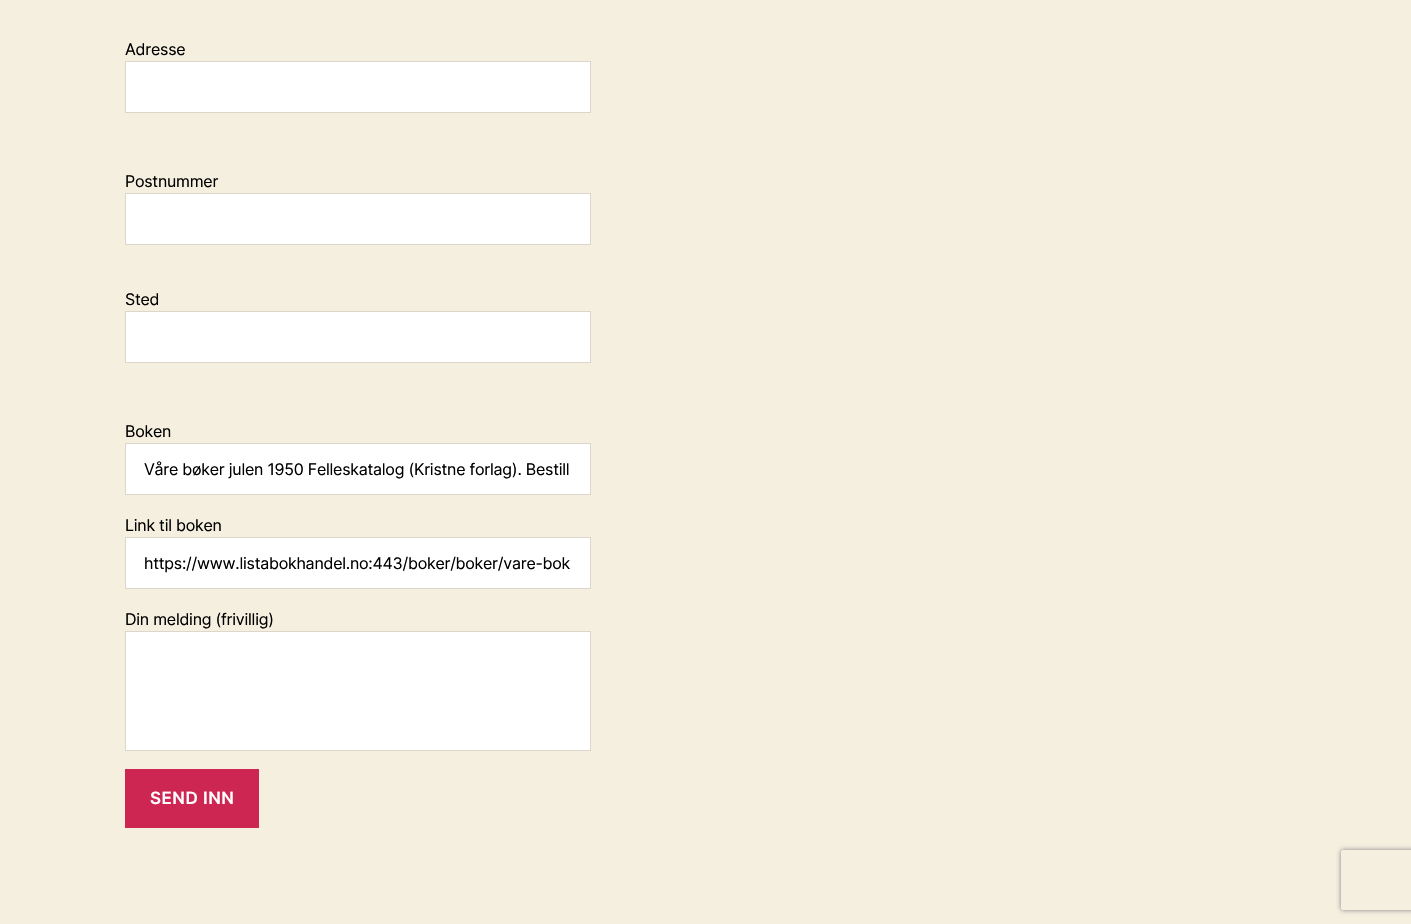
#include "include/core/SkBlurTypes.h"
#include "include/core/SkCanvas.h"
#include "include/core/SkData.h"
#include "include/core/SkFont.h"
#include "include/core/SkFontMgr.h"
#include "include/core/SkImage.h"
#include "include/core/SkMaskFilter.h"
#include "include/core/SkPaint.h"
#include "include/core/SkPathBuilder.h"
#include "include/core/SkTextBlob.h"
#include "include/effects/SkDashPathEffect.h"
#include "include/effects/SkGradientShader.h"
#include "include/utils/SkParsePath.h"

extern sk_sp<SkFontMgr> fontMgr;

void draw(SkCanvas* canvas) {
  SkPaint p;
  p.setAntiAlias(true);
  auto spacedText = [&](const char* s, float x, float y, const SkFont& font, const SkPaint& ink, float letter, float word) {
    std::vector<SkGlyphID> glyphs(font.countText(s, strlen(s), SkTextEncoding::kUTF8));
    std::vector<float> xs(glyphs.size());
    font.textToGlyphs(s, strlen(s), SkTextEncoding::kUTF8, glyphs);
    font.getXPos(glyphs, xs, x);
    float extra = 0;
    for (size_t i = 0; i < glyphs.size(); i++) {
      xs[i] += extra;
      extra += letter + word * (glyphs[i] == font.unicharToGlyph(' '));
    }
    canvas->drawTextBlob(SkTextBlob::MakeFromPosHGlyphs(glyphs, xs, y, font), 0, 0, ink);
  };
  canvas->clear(SkColorSetRGB(245, 239, 224));
  p.setColor(SK_ColorWHITE);
  canvas->drawRect(SkRect::MakeLTRB(125.5f, 61.5f, 590.5f, 112.5f), p);
  p.setStyle(SkPaint::kStroke_Style);
  p.setStrokeWidth(1);
  p.setColor(SkColorSetRGB(220, 215, 202));
  canvas->drawRect(SkRect::MakeLTRB(125.5f, 61.5f, 590.5f, 112.5f), p);
  p.setStyle(SkPaint::kFill_Style);
  p.setColor(SK_ColorWHITE);
  canvas->drawRect(SkRect::MakeLTRB(125.5f, 193.5f, 590.5f, 244.5f), p);
  p.setStyle(SkPaint::kStroke_Style);
  p.setColor(SkColorSetRGB(220, 215, 202));
  canvas->drawRect(SkRect::MakeLTRB(125.5f, 193.5f, 590.5f, 244.5f), p);
  p.setStyle(SkPaint::kFill_Style);
  p.setColor(SK_ColorWHITE);
  canvas->drawRect(SkRect::MakeLTRB(125.5f, 311.5f, 590.5f, 362.5f), p);
  p.setStyle(SkPaint::kStroke_Style);
  p.setColor(SkColorSetRGB(220, 215, 202));
  canvas->drawRect(SkRect::MakeLTRB(125.5f, 311.5f, 590.5f, 362.5f), p);
  p.setStyle(SkPaint::kFill_Style);
  p.setColor(SK_ColorWHITE);
  canvas->drawRect(SkRect::MakeLTRB(125.5f, 443.5f, 590.5f, 494.5f), p);
  p.setStyle(SkPaint::kStroke_Style);
  p.setColor(SkColorSetRGB(220, 215, 202));
  canvas->drawRect(SkRect::MakeLTRB(125.5f, 443.5f, 590.5f, 494.5f), p);
  p.setStyle(SkPaint::kFill_Style);
  p.setColor(SK_ColorWHITE);
  canvas->drawRect(SkRect::MakeLTRB(125.5f, 537.5f, 590.5f, 588.5f), p);
  p.setStyle(SkPaint::kStroke_Style);
  p.setColor(SkColorSetRGB(220, 215, 202));
  canvas->drawRect(SkRect::MakeLTRB(125.5f, 537.5f, 590.5f, 588.5f), p);
  p.setStyle(SkPaint::kFill_Style);
  p.setColor(SK_ColorWHITE);
  canvas->drawRect(SkRect::MakeLTRB(125.5f, 631.5f, 590.5f, 750.5f), p);
  p.setStyle(SkPaint::kStroke_Style);
  p.setColor(SkColorSetRGB(220, 215, 202));
  canvas->drawRect(SkRect::MakeLTRB(125.5f, 631.5f, 590.5f, 750.5f), p);
  p.setStyle(SkPaint::kFill_Style);
  p.setColor(SkColorSetRGB(205, 38, 83));
  canvas->drawRect(SkRect::MakeLTRB(125, 769, 259, 828), p);
  canvas->save();
  canvas->clipPath(SkPathBuilder(SkPathFillType::kEvenOdd).moveTo(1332, 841).lineTo(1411, 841).lineTo(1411, 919).lineTo(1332, 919).close().moveTo(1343, 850).lineTo(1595, 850).cubicTo(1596, 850, 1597, 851, 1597, 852).lineTo(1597, 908).cubicTo(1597, 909, 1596, 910, 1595, 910).lineTo(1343, 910).cubicTo(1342, 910, 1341, 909, 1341, 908).lineTo(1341, 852).cubicTo(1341, 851, 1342, 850, 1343, 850).close().detach(), true);
  p.setColor(SkColorSetRGB(128, 128, 128));
  p.setMaskFilter(SkMaskFilter::MakeBlur(kNormal_SkBlurStyle, 2.5f));
  canvas->drawRoundRect(SkRect::MakeLTRB(1341, 850, 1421, 910), 2, 2, p);
  p.setMaskFilter(nullptr);
  canvas->restore();
  SkFont font1(fontMgr->matchFamilyStyle("Inter", SkFontStyle::Normal()), 16);
  font1.setSubpixel(true);
  p.setColor(SK_ColorBLACK);
  spacedText("Adresse", 125, 55, font1, p, -0.25f, 0);
  spacedText("Postnummer", 125, 187, font1, p, -0.25f, 0);
  spacedText("Sted", 125, 305, font1, p, -0.25f, 0);
  spacedText("Boken", 125, 437, font1, p, -0.25f, 0);
  spacedText("Våre bøker julen 1950 Felleskatalog (Kristne forlag). Bestill", 144, 475, font1, p, -0.25f, 0);
  spacedText("Link til boken", 125, 531, font1, p, -0.25f, 0);
  spacedText("https://www.listabokhandel.no:443/boker/boker/vare-bok", 144, 569, font1, p, -0.25f, 0);
  spacedText("Din melding (frivillig)", 125, 625, font1, p, -0.25f, 0);
  SkFont font2(fontMgr->matchFamilyStyle("Inter", SkFontStyle(600, SkFontStyle::kNormal_Width, SkFontStyle::kUpright_Slant)), 17);
  font2.setSubpixel(true);
  p.setColor(SK_ColorWHITE);
  spacedText("SEND INN", 150, 804, font2, p, 0.5f, 0);
}
